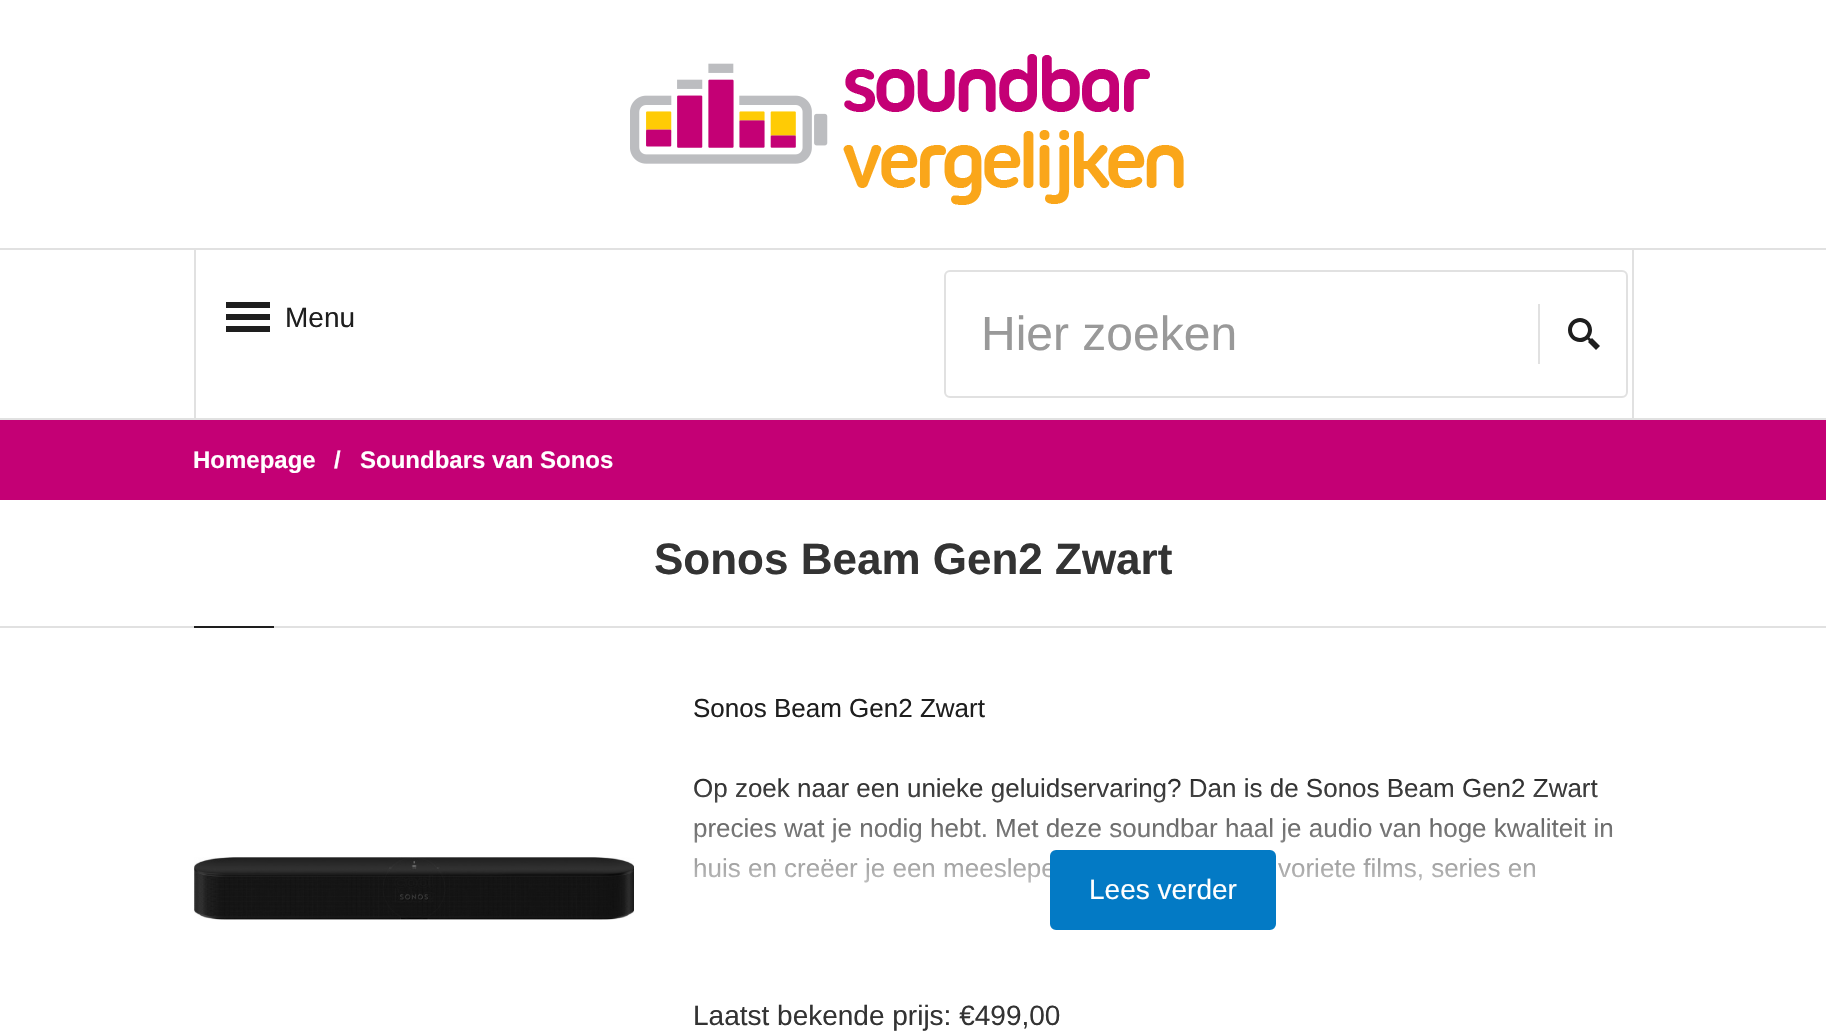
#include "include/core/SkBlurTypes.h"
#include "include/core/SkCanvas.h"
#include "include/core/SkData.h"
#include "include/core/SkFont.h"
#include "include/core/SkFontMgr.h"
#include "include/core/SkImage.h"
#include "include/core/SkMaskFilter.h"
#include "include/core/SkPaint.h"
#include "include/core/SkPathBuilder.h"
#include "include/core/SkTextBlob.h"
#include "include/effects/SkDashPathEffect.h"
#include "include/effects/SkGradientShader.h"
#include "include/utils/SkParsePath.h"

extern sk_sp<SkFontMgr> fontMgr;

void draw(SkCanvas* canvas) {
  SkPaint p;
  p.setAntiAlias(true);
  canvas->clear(SK_ColorWHITE);
  canvas->drawImageRect(SkImages::DeferredFromEncodedData(SkData::MakeFromFileName("images/1.png")), SkRect::MakeLTRB(630, 54, 1184, 205), SkSamplingOptions());
  p.setColor(SkColorSetRGB(225, 225, 225));
  canvas->drawRect(SkRect::MakeLTRB(0, 248, 1826, 250), p);
  canvas->drawRect(SkRect::MakeLTRB(0, 418, 1826, 420), p);
  canvas->drawRect(SkRect::MakeLTRB(1632, 250, 1634, 418), p);
  canvas->drawRect(SkRect::MakeLTRB(194, 250, 196, 418), p);
  p.setColor(SkColorSetRGB(30, 30, 30));
  canvas->drawRect(SkRect::MakeLTRB(226, 302, 270, 308), p);
  canvas->drawRect(SkRect::MakeLTRB(226, 314, 270, 320), p);
  canvas->drawRect(SkRect::MakeLTRB(226, 326, 270, 332), p);
  p.setStyle(SkPaint::kStroke_Style);
  p.setStrokeWidth(2);
  p.setColor(SkColorSetRGB(225, 225, 225));
  canvas->drawRoundRect(SkRect::MakeLTRB(945, 271, 1627, 397), 5, 5, p);
  p.setStyle(SkPaint::kFill_Style);
  canvas->drawRect(SkRect::MakeLTRB(1538, 304, 1540, 364), p);
  canvas->drawImageRect(SkImages::DeferredFromEncodedData(SkData::MakeFromFileName("images/2.png")), SkRect::MakeLTRB(1568, 318, 1600, 350), SkSamplingOptions());
  p.setColor(SkColorSetRGB(196, 0, 117));
  canvas->drawRect(SkRect::MakeLTRB(0, 420, 1826, 500), p);
  p.setColor(SkColorSetRGB(225, 225, 225));
  canvas->drawRect(SkRect::MakeLTRB(0, 626, 1826, 628), p);
  p.setColor(SkColorSetRGB(30, 30, 30));
  canvas->drawRect(SkRect::MakeLTRB(194, 626, 274, 628), p);
  canvas->drawImageRect(SkImages::DeferredFromEncodedData(SkData::MakeFromFileName("images/3.png")), SkRect::MakeLTRB(194, 857, 634, 920), SkSamplingOptions());
  SkFont font1(fontMgr->matchFamilyStyle("Arimo", SkFontStyle::Normal()), 28);
  font1.setSubpixel(true);
  canvas->drawString("Menu", 285, 327, font1, p);
  SkFont font2(fontMgr->matchFamilyStyle("Arimo", SkFontStyle::Normal()), 48);
  font2.setSubpixel(true);
  p.setColor(SkColorSetRGB(153, 153, 153));
  canvas->drawString("Hier zoeken", 981, 350, font2, p);
  SkFont font3(fontMgr->matchFamilyStyle("Arimo", SkFontStyle::Bold()), 24);
  font3.setSubpixel(true);
  p.setColor(SK_ColorWHITE);
  canvas->drawString("Homepage", 193, 468, font3, p);
  canvas->drawString("/", 334, 468, font3, p);
  canvas->drawString("Soundbars van Sonos", 360, 468, font3, p);
  SkFont font4(fontMgr->matchFamilyStyle("Arimo", SkFontStyle::Bold()), 44);
  font4.setSubpixel(true);
  p.setColor(SkColorSetRGB(51, 51, 51));
  canvas->drawString("Sonos Beam Gen2 Zwart", 654, 574, font4, p);
  SkFont font5(fontMgr->matchFamilyStyle("Arimo", SkFontStyle::Normal()), 26);
  font5.setSubpixel(true);
  p.setColor(SkColorSetRGB(30, 30, 30));
  canvas->drawString("Sonos Beam Gen2 Zwart", 693, 717, font5, p);
  canvas->drawString("Op zoek naar een unieke geluidservaring? Dan is de Sonos Beam Gen2 Zwart", 693, 797, font5, p);
  canvas->drawString("precies wat je nodig hebt. Met deze soundbar haal je audio van hoge kwaliteit in", 693, 837, font5, p);
  canvas->drawString("huis en creëer je een meeslepe", 693, 877, font5, p);
  canvas->drawString("voriete films, series en", 1278, 877, font5, p);
  {
    const SkColor colors[] = {SkColorSetARGB(0, 255, 255, 255), SK_ColorWHITE};
    const float stops[] = {0, 1};
    const SkPoint ends[] = {{1164, 770}, {1164, 930}};
    p.setShader(SkGradientShader::MakeLinear(ends, colors, stops, 2, SkTileMode::kClamp));
    p.setAlpha(255);
  }
  canvas->drawRect(SkRect::MakeLTRB(694, 778, 1612, 883), p);
  p.setShader(nullptr);
  p.setColor(SkColorSetRGB(3, 122, 197));
  canvas->drawRoundRect(SkRect::MakeLTRB(1051, 851, 1275, 929), 5, 5, p);
  p.setStyle(SkPaint::kStroke_Style);
  canvas->drawRoundRect(SkRect::MakeLTRB(1051, 851, 1275, 929), 5, 5, p);
  p.setStyle(SkPaint::kFill_Style);
  p.setColor(SK_ColorWHITE);
  canvas->drawString("Lees verder", 1089, 899, font1, p);
  p.setColor(SkColorSetRGB(51, 51, 51));
  canvas->drawString("Laatst bekende prijs: €499,00", 693, 1025, font1, p);
}
